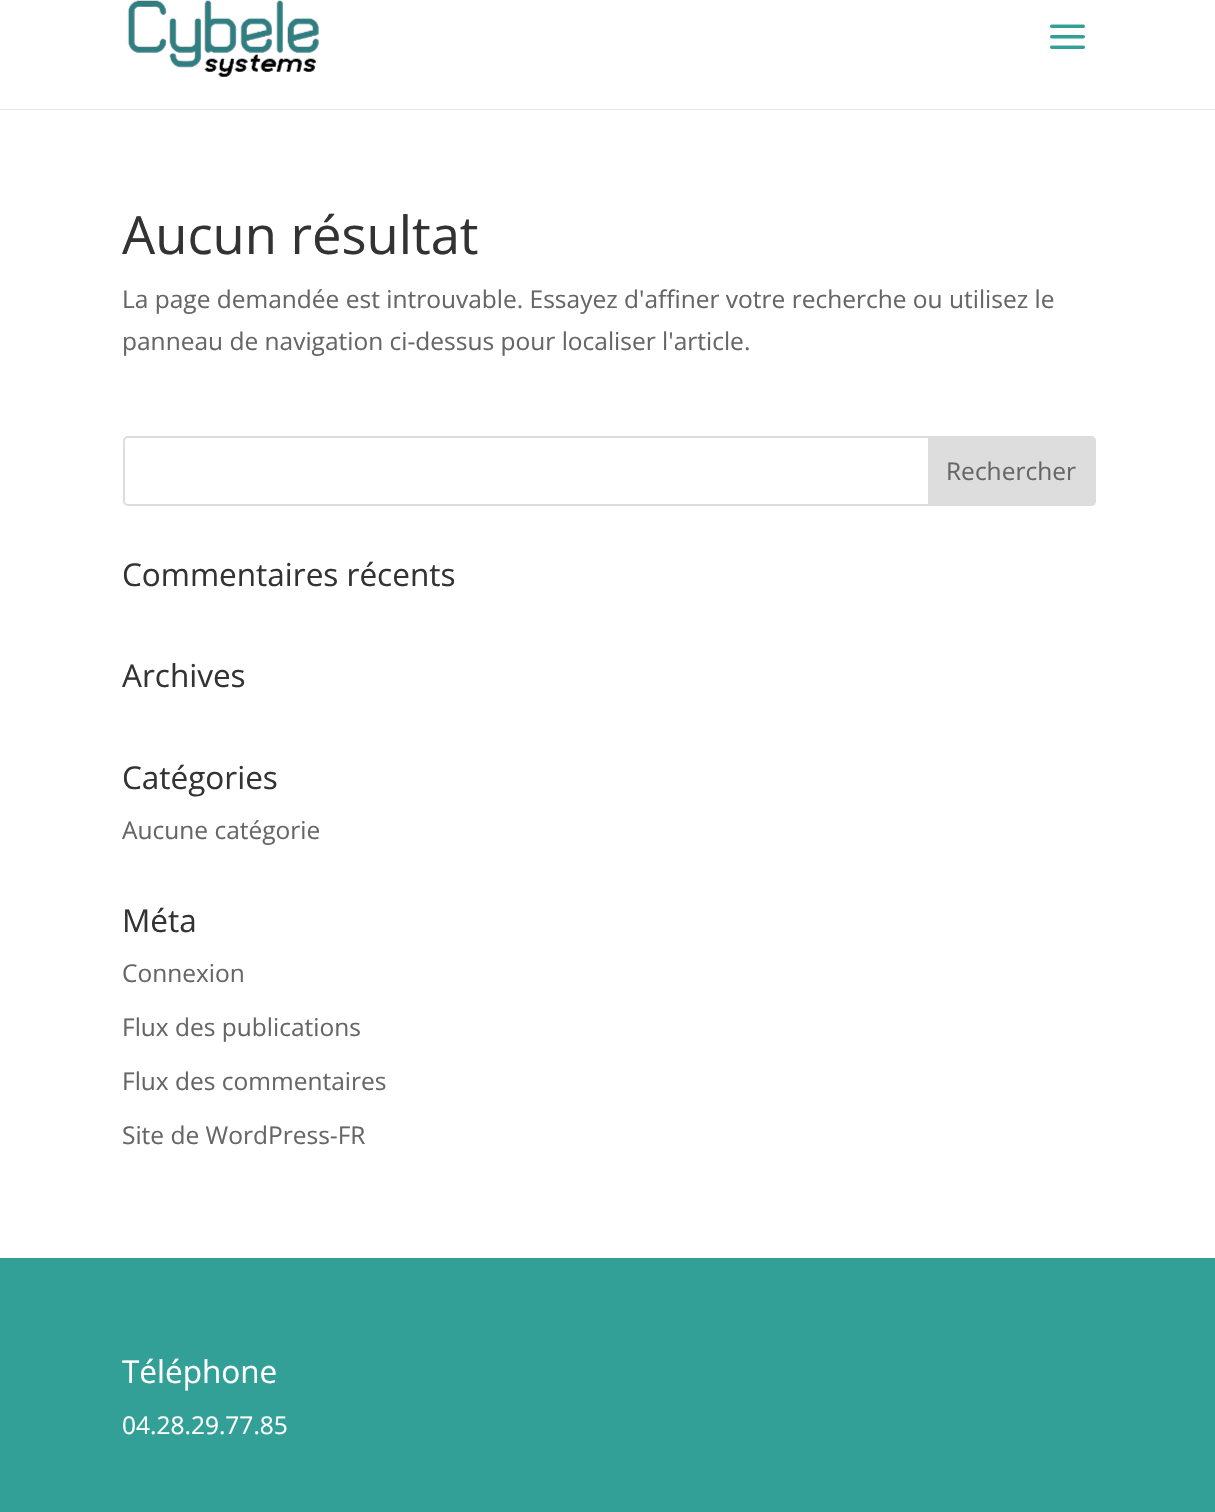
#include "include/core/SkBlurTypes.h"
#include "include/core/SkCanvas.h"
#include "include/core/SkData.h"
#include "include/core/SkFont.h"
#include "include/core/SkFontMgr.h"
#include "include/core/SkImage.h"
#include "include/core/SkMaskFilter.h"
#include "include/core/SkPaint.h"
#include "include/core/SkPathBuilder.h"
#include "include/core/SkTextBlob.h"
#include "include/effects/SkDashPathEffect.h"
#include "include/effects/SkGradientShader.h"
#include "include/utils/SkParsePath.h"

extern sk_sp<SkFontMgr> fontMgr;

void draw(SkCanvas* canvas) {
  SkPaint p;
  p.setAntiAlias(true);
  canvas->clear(SkColorSetRGB(50, 160, 151));
  p.setColor(SkColorSetRGB(230, 230, 230));
  canvas->drawRect(SkRect::MakeLTRB(0, 109, 1215, 110), p);
  p.setColor(SK_ColorWHITE);
  canvas->drawRect(SkRect::MakeLTRB(0, 0, 1215, 109), p);
  canvas->drawImageRect(SkImages::DeferredFromEncodedData(SkData::MakeFromFileName("images/1.png")), SkRect::MakeLTRB(127, 0, 319, 77), SkSamplingOptions());
  canvas->drawImageRect(SkImages::DeferredFromEncodedData(SkData::MakeFromFileName("images/2.png")), SkRect::MakeLTRB(1050, 24, 1085, 49), SkSamplingOptions());
  canvas->drawRect(SkRect::MakeLTRB(0, 110, 1215, 1258), p);
  p.setStyle(SkPaint::kStroke_Style);
  p.setStrokeWidth(2);
  p.setColor(SkColorSetRGB(221, 221, 221));
  canvas->drawRoundRect(SkRect::MakeLTRB(124, 437, 1095, 505), 4, 4, p);
  p.setStyle(SkPaint::kFill_Style);
  canvas->drawPath(SkPathBuilder().moveTo(929, 437).lineTo(1091, 437).cubicTo(1093, 437, 1095, 439, 1095, 441).lineTo(1095, 501).cubicTo(1095, 503, 1093, 505, 1091, 505).lineTo(929, 505).close().detach(), p);
  p.setStyle(SkPaint::kStroke_Style);
  canvas->drawPath(SkPathBuilder().moveTo(929, 437).lineTo(1091, 437).cubicTo(1093, 437, 1095, 439, 1095, 441).lineTo(1095, 501).cubicTo(1095, 503, 1093, 505, 1091, 505).lineTo(929, 505).close().detach(), p);
  SkFont font1(fontMgr->matchFamilyStyle("Open Sans", SkFontStyle::Normal()), 52.5f);
  font1.setSubpixel(true);
  p.setStyle(SkPaint::kFill_Style);
  p.setColor(SkColorSetRGB(51, 51, 51));
  canvas->drawString("Aucun résultat", 122, 254, font1, p);
  SkFont font2(fontMgr->matchFamilyStyle("Open Sans", SkFontStyle::Normal()), 24.5f);
  font2.setSubpixel(true);
  p.setColor(SkColorSetRGB(102, 102, 102));
  canvas->drawString("La page demandée est introuvable. Essayez d'affiner votre recherche ou utilisez le", 122, 308, font2, p);
  canvas->drawString("panneau de navigation ci-dessus pour localiser l'article.", 122, 350, font2, p);
  canvas->drawString("Rechercher", 946, 480, font2, p);
  SkFont font3(fontMgr->matchFamilyStyle("Open Sans", SkFontStyle::Normal()), 31.5f);
  font3.setSubpixel(true);
  p.setColor(SkColorSetRGB(51, 51, 51));
  canvas->drawString("Commentaires récents", 122, 586, font3, p);
  canvas->drawString("Archives", 122, 687, font3, p);
  canvas->drawString("Catégories", 122, 789, font3, p);
  p.setColor(SkColorSetRGB(102, 102, 102));
  canvas->drawString("Aucune catégorie", 122, 839, font2, p);
  p.setColor(SkColorSetRGB(51, 51, 51));
  canvas->drawString("Méta", 122, 932, font3, p);
  p.setColor(SkColorSetRGB(102, 102, 102));
  canvas->drawString("Connexion", 122, 982, font2, p);
  canvas->drawString("Flux des publications", 122, 1036, font2, p);
  canvas->drawString("Flux des commentaires", 122, 1090, font2, p);
  canvas->drawString("Site de WordPress-FR", 122, 1144, font2, p);
  p.setColor(SK_ColorWHITE);
  canvas->drawString("Téléphone", 122, 1383, font3, p);
  canvas->drawString("04.28.29.77.85", 122, 1434, font2, p);
}
